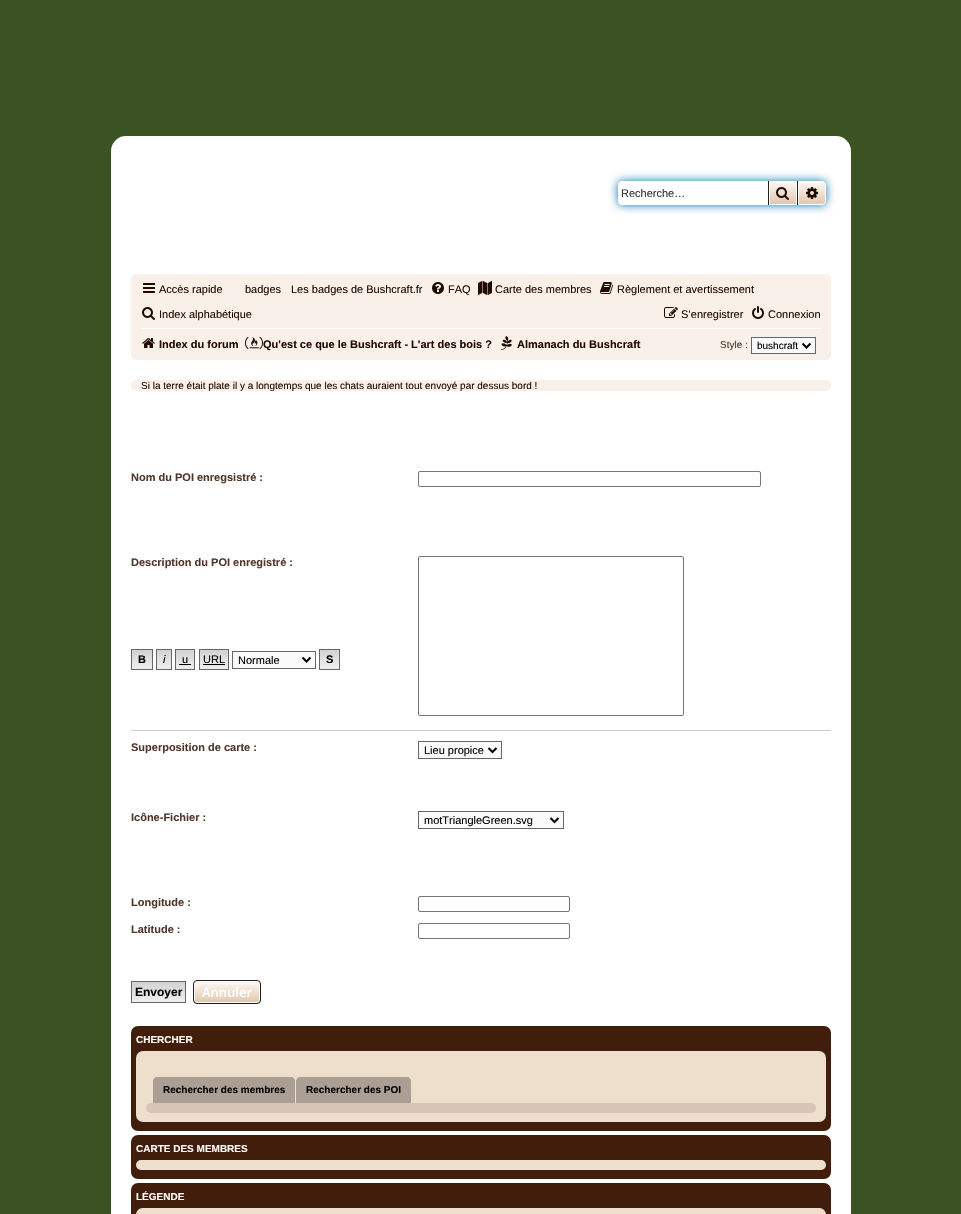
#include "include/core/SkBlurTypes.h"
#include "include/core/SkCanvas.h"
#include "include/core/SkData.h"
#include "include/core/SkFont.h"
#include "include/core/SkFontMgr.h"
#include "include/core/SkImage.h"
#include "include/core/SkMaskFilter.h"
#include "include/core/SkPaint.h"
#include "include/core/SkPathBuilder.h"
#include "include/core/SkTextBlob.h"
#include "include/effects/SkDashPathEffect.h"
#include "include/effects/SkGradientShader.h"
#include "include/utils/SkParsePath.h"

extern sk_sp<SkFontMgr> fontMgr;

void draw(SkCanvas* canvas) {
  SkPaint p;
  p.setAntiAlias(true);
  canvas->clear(SkColorSetRGB(59, 83, 35));
  p.setColor(SK_ColorWHITE);
  canvas->drawRoundRect(SkRect::MakeLTRB(111, 136, 851, 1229), 15, 15, p);
  p.setColor(SkColorSetRGB(0, 117, 176));
  p.setMaskFilter(SkMaskFilter::MakeBlur(kNormal_SkBlurStyle, 5));
  canvas->drawRoundRect(SkRect::MakeLTRB(618, 181, 826, 205), 4, 4, p);
  p.setMaskFilter(nullptr);
  p.setColor(SK_ColorWHITE);
  canvas->drawPath(SkPathBuilder().moveTo(622, 181).lineTo(768, 181).lineTo(768, 205).lineTo(622, 205).cubicTo(620, 205, 618, 203, 618, 201).lineTo(618, 185).cubicTo(618, 183, 620, 181, 622, 181).close().detach(), p);
  {
    const SkColor colors[] = {SkColorSetRGB(255, 250, 245), SkColorSetRGB(222, 198, 173)};
    const float stops[] = {0, 1};
    const SkPoint ends[] = {{783, 181}, {783, 205}};
    p.setShader(SkGradientShader::MakeLinear(ends, colors, stops, 2, SkTileMode::kClamp));
    p.setAlpha(255);
  }
  canvas->drawRect(SkRect::MakeLTRB(770, 182, 796, 204), p);
  p.setStyle(SkPaint::kStroke_Style);
  p.setStrokeWidth(1);
  p.setShader(nullptr);
  p.setColor(SK_ColorWHITE);
  canvas->drawRect(SkRect::MakeLTRB(769.5f, 181.5f, 796.5f, 204.5f), p);
  p.setStyle(SkPaint::kFill_Style);
  p.setColor(SkColorSetRGB(30, 30, 30));
  canvas->drawRect(SkRect::MakeLTRB(797, 181, 798, 205), p);
  canvas->drawRect(SkRect::MakeLTRB(768, 181, 769, 205), p);
  canvas->drawImageRect(SkImages::DeferredFromEncodedData(SkData::MakeFromFileName("images/1.png")), SkRect::MakeLTRB(776, 187, 789, 200), SkSamplingOptions());
  {
    const SkColor colors[] = {SkColorSetRGB(255, 250, 245), SkColorSetRGB(222, 198, 173)};
    const float stops[] = {0, 1};
    const SkPoint ends[] = {{812, 181}, {812, 205}};
    p.setShader(SkGradientShader::MakeLinear(ends, colors, stops, 2, SkTileMode::kClamp));
    p.setAlpha(255);
  }
  canvas->drawPath(SkPathBuilder().moveTo(798.5f, 181.5f).lineTo(822, 181.5f).cubicTo(824, 181.5f, 825.5f, 183, 825.5f, 185).lineTo(825.5f, 201).cubicTo(825.5f, 203, 824, 204.5f, 822, 204.5f).lineTo(798.5f, 204.5f).close().detach(), p);
  p.setStyle(SkPaint::kStroke_Style);
  p.setShader(nullptr);
  p.setColor(SK_ColorWHITE);
  canvas->drawPath(SkPathBuilder().moveTo(798.5f, 181.5f).lineTo(822, 181.5f).cubicTo(824, 181.5f, 825.5f, 183, 825.5f, 185).lineTo(825.5f, 201).cubicTo(825.5f, 203, 824, 204.5f, 822, 204.5f).lineTo(798.5f, 204.5f).close().detach(), p);
  canvas->drawImageRect(SkImages::DeferredFromEncodedData(SkData::MakeFromFileName("images/2.png")), SkRect::MakeLTRB(806, 187, 818, 199), SkSamplingOptions());
  p.setStyle(SkPaint::kFill_Style);
  p.setColor(SkColorSetRGB(249, 240, 234));
  canvas->drawRoundRect(SkRect::MakeLTRB(131, 274, 831, 360), 5, 5, p);
  canvas->drawImageRect(SkImages::DeferredFromEncodedData(SkData::MakeFromFileName("images/3.png")), SkRect::MakeLTRB(143, 283, 155, 293), SkSamplingOptions());
  canvas->drawImageRect(SkImages::DeferredFromEncodedData(SkData::MakeFromFileName("images/4.png")), SkRect::MakeLTRB(432, 282, 444, 294), SkSamplingOptions());
  canvas->drawImageRect(SkImages::DeferredFromEncodedData(SkData::MakeFromFileName("images/5.png")), SkRect::MakeLTRB(478, 281, 492, 295), SkSamplingOptions());
  canvas->drawImageRect(SkImages::DeferredFromEncodedData(SkData::MakeFromFileName("images/6.png")), SkRect::MakeLTRB(600, 282, 613, 294), SkSamplingOptions());
  canvas->drawImageRect(SkImages::DeferredFromEncodedData(SkData::MakeFromFileName("images/7.png")), SkRect::MakeLTRB(142, 307, 155, 320), SkSamplingOptions());
  canvas->drawImageRect(SkImages::DeferredFromEncodedData(SkData::MakeFromFileName("images/8.png")), SkRect::MakeLTRB(664, 307, 678, 318), SkSamplingOptions());
  canvas->drawImageRect(SkImages::DeferredFromEncodedData(SkData::MakeFromFileName("images/9.png")), SkRect::MakeLTRB(752, 306, 764, 319), SkSamplingOptions());
  p.setColor(SK_ColorWHITE);
  canvas->drawRect(SkRect::MakeLTRB(141, 328, 821, 329), p);
  canvas->drawImageRect(SkImages::DeferredFromEncodedData(SkData::MakeFromFileName("images/10.png")), SkRect::MakeLTRB(142, 338, 155, 348), SkSamplingOptions());
  canvas->drawImageRect(SkImages::DeferredFromEncodedData(SkData::MakeFromFileName("images/11.png")), SkRect::MakeLTRB(245, 336, 263, 350), SkSamplingOptions());
  canvas->drawImageRect(SkImages::DeferredFromEncodedData(SkData::MakeFromFileName("images/12.png")), SkRect::MakeLTRB(501, 336, 512, 350), SkSamplingOptions());
  p.setColor(SkColorSetRGB(250, 250, 250));
  canvas->drawRect(SkRect::MakeLTRB(751.5f, 337.5f, 815.5f, 353.5f), p);
  p.setStyle(SkPaint::kStroke_Style);
  p.setColor(SkColorSetRGB(102, 102, 102));
  canvas->drawRect(SkRect::MakeLTRB(751.5f, 337.5f, 815.5f, 353.5f), p);
  p.setStrokeWidth(2);
  p.setColor(SK_ColorBLACK);
  canvas->drawPath(SkPathBuilder().moveTo(802.5f, 343.5f).lineTo(806.5f, 347.5f).lineTo(810.5f, 343.5f).detach(), p);
  p.setStyle(SkPaint::kFill_Style);
  p.setColor(SkColorSetRGB(249, 240, 234));
  canvas->drawRoundRect(SkRect::MakeLTRB(131, 380, 831, 391), 5, 5, p);
  p.setStyle(SkPaint::kStroke_Style);
  p.setStrokeWidth(1);
  p.setColor(SkColorSetRGB(118, 118, 118));
  canvas->drawRoundRect(SkRect::MakeLTRB(418.5f, 471.5f, 760.5f, 486.5f), 1.5f, 1.5f, p);
  p.setStyle(SkPaint::kFill_Style);
  {
    const SkColor colors[] = {SkColorSetRGB(210, 210, 210), SkColorSetRGB(239, 239, 239)};
    const float stops[] = {0, 1};
    const SkPoint ends[] = {{142, 650}, {142, 669}};
    p.setShader(SkGradientShader::MakeLinear(ends, colors, stops, 2, SkTileMode::kClamp));
    p.setAlpha(255);
  }
  canvas->drawRect(SkRect::MakeLTRB(132, 650, 152, 669), p);
  p.setStyle(SkPaint::kStroke_Style);
  p.setShader(nullptr);
  p.setColor(SkColorSetRGB(102, 102, 102));
  canvas->drawRect(SkRect::MakeLTRB(131.5f, 649.5f, 152.5f, 669.5f), p);
  p.setStyle(SkPaint::kFill_Style);
  {
    const SkColor colors[] = {SkColorSetRGB(210, 210, 210), SkColorSetRGB(239, 239, 239)};
    const float stops[] = {0, 1};
    const SkPoint ends[] = {{164, 650}, {164, 669}};
    p.setShader(SkGradientShader::MakeLinear(ends, colors, stops, 2, SkTileMode::kClamp));
    p.setAlpha(255);
  }
  canvas->drawRect(SkRect::MakeLTRB(157, 650, 171, 669), p);
  p.setStyle(SkPaint::kStroke_Style);
  p.setShader(nullptr);
  p.setColor(SkColorSetRGB(102, 102, 102));
  canvas->drawRect(SkRect::MakeLTRB(156.5f, 649.5f, 171.5f, 669.5f), p);
  p.setStyle(SkPaint::kFill_Style);
  {
    const SkColor colors[] = {SkColorSetRGB(210, 210, 210), SkColorSetRGB(239, 239, 239)};
    const float stops[] = {0, 1};
    const SkPoint ends[] = {{185, 650}, {185, 669}};
    p.setShader(SkGradientShader::MakeLinear(ends, colors, stops, 2, SkTileMode::kClamp));
    p.setAlpha(255);
  }
  canvas->drawRect(SkRect::MakeLTRB(176, 650, 194, 669), p);
  p.setStyle(SkPaint::kStroke_Style);
  p.setShader(nullptr);
  p.setColor(SkColorSetRGB(102, 102, 102));
  canvas->drawRect(SkRect::MakeLTRB(175.5f, 649.5f, 194.5f, 669.5f), p);
  p.setStyle(SkPaint::kFill_Style);
  p.setColor(SK_ColorBLACK);
  canvas->drawRect(SkRect::MakeLTRB(179, 664, 191, 665), p);
  {
    const SkColor colors[] = {SkColorSetRGB(210, 210, 210), SkColorSetRGB(239, 239, 239)};
    const float stops[] = {0, 1};
    const SkPoint ends[] = {{214, 650}, {214, 669}};
    p.setShader(SkGradientShader::MakeLinear(ends, colors, stops, 2, SkTileMode::kClamp));
    p.setAlpha(255);
  }
  canvas->drawRect(SkRect::MakeLTRB(200, 650, 228, 669), p);
  p.setStyle(SkPaint::kStroke_Style);
  p.setShader(nullptr);
  p.setColor(SkColorSetRGB(102, 102, 102));
  canvas->drawRect(SkRect::MakeLTRB(199.5f, 649.5f, 228.5f, 669.5f), p);
  p.setStyle(SkPaint::kFill_Style);
  p.setColor(SK_ColorBLACK);
  canvas->drawRect(SkRect::MakeLTRB(203, 664, 225, 665), p);
  p.setColor(SkColorSetRGB(250, 250, 250));
  canvas->drawRect(SkRect::MakeLTRB(232.5f, 651.5f, 315.5f, 668.5f), p);
  p.setStyle(SkPaint::kStroke_Style);
  p.setColor(SkColorSetRGB(102, 102, 102));
  canvas->drawRect(SkRect::MakeLTRB(232.5f, 651.5f, 315.5f, 668.5f), p);
  p.setStrokeWidth(2);
  p.setColor(SK_ColorBLACK);
  canvas->drawPath(SkPathBuilder().moveTo(302.5f, 657.5f).lineTo(306.5f, 661.5f).lineTo(310.5f, 657.5f).detach(), p);
  p.setStyle(SkPaint::kFill_Style);
  {
    const SkColor colors[] = {SkColorSetRGB(210, 210, 210), SkColorSetRGB(239, 239, 239)};
    const float stops[] = {0, 1};
    const SkPoint ends[] = {{330, 650}, {330, 669}};
    p.setShader(SkGradientShader::MakeLinear(ends, colors, stops, 2, SkTileMode::kClamp));
    p.setAlpha(255);
  }
  canvas->drawRect(SkRect::MakeLTRB(320, 650, 339, 669), p);
  p.setStyle(SkPaint::kStroke_Style);
  p.setStrokeWidth(1);
  p.setShader(nullptr);
  p.setColor(SkColorSetRGB(102, 102, 102));
  canvas->drawRect(SkRect::MakeLTRB(319.5f, 649.5f, 339.5f, 669.5f), p);
  p.setColor(SkColorSetRGB(118, 118, 118));
  canvas->drawRoundRect(SkRect::MakeLTRB(418.5f, 556.5f, 683.5f, 715.5f), 1.5f, 1.5f, p);
  p.setStyle(SkPaint::kFill_Style);
  p.setColor(SkColorSetRGB(204, 204, 204));
  canvas->drawRect(SkRect::MakeLTRB(131, 730, 831, 731), p);
  p.setColor(SkColorSetRGB(250, 250, 250));
  canvas->drawRect(SkRect::MakeLTRB(418.5f, 741.5f, 501.5f, 758.5f), p);
  p.setStyle(SkPaint::kStroke_Style);
  p.setColor(SkColorSetRGB(102, 102, 102));
  canvas->drawRect(SkRect::MakeLTRB(418.5f, 741.5f, 501.5f, 758.5f), p);
  p.setStrokeWidth(2);
  p.setColor(SK_ColorBLACK);
  canvas->drawPath(SkPathBuilder().moveTo(488.5f, 748).lineTo(492.5f, 752).lineTo(496.5f, 748).detach(), p);
  p.setStyle(SkPaint::kFill_Style);
  p.setColor(SkColorSetRGB(250, 250, 250));
  canvas->drawRect(SkRect::MakeLTRB(418.5f, 811.5f, 563.5f, 828.5f), p);
  p.setStyle(SkPaint::kStroke_Style);
  p.setStrokeWidth(1);
  p.setColor(SkColorSetRGB(102, 102, 102));
  canvas->drawRect(SkRect::MakeLTRB(418.5f, 811.5f, 563.5f, 828.5f), p);
  p.setStrokeWidth(2);
  p.setColor(SK_ColorBLACK);
  canvas->drawPath(SkPathBuilder().moveTo(550.5f, 818).lineTo(554.5f, 822).lineTo(558.5f, 818).detach(), p);
  p.setStrokeWidth(1);
  p.setColor(SkColorSetRGB(118, 118, 118));
  canvas->drawRoundRect(SkRect::MakeLTRB(418.5f, 896.5f, 569.5f, 911.5f), 1.5f, 1.5f, p);
  canvas->drawRoundRect(SkRect::MakeLTRB(418.5f, 923.5f, 569.5f, 938.5f), 1.5f, 1.5f, p);
  p.setStyle(SkPaint::kFill_Style);
  {
    const SkColor colors[] = {SkColorSetRGB(210, 210, 210), SkColorSetRGB(239, 239, 239)};
    const float stops[] = {0, 1};
    const SkPoint ends[] = {{159, 982}, {159, 1002}};
    p.setShader(SkGradientShader::MakeLinear(ends, colors, stops, 2, SkTileMode::kClamp));
    p.setAlpha(255);
  }
  canvas->drawRect(SkRect::MakeLTRB(132, 982, 185, 1002), p);
  p.setStyle(SkPaint::kStroke_Style);
  p.setShader(nullptr);
  p.setColor(SkColorSetRGB(102, 102, 102));
  canvas->drawRect(SkRect::MakeLTRB(131.5f, 981.5f, 185.5f, 1002.5f), p);
  canvas->save();
  canvas->clipPath(SkPathBuilder().moveTo(197, 980).lineTo(257, 980).cubicTo(259, 980, 261, 982, 261, 984).lineTo(261, 1000).cubicTo(261, 1002, 259, 1004, 257, 1004).lineTo(197, 1004).cubicTo(195, 1004, 193, 1002, 193, 1000).lineTo(193, 984).cubicTo(193, 982, 195, 980, 197, 980).close().detach(), true);
  p.setStyle(SkPaint::kFill_Style);
  {
    const SkColor colors[] = {SkColorSetRGB(255, 250, 245), SkColorSetRGB(222, 198, 173)};
    const float stops[] = {0, 1};
    const SkPoint ends[] = {{227, 981}, {227, 1003}};
    p.setShader(SkGradientShader::MakeLinear(ends, colors, stops, 2, SkTileMode::kClamp));
    p.setAlpha(255);
  }
  canvas->drawRect(SkRect::MakeLTRB(193, 981, 261, 1003), p);
  canvas->restore();
  p.setStyle(SkPaint::kStroke_Style);
  p.setShader(nullptr);
  p.setColor(SK_ColorWHITE);
  canvas->drawRoundRect(SkRect::MakeLTRB(194.5f, 981.5f, 259.5f, 1002.5f), 2.5f, 2.5f, p);
  p.setColor(SkColorSetRGB(30, 30, 30));
  canvas->drawRoundRect(SkRect::MakeLTRB(193.5f, 980.5f, 260.5f, 1003.5f), 3.5f, 3.5f, p);
  p.setStyle(SkPaint::kFill_Style);
  p.setColor(SkColorSetRGB(65, 29, 12));
  canvas->drawRoundRect(SkRect::MakeLTRB(131, 1026, 831, 1131), 7, 7, p);
  p.setColor(SkColorSetRGB(238, 223, 204));
  canvas->drawRoundRect(SkRect::MakeLTRB(136, 1051, 826, 1122), 7, 7, p);
  p.setColor(SkColorSetRGB(171, 158, 148));
  canvas->drawPath(SkPathBuilder().moveTo(157, 1077).lineTo(291, 1077).cubicTo(293, 1077, 295, 1079, 295, 1081).lineTo(295, 1103).lineTo(153, 1103).lineTo(153, 1081).cubicTo(153, 1079, 155, 1077, 157, 1077).close().detach(), p);
  canvas->drawPath(SkPathBuilder().moveTo(300, 1077).lineTo(407, 1077).cubicTo(409, 1077, 411, 1079, 411, 1081).lineTo(411, 1103).lineTo(296, 1103).lineTo(296, 1081).cubicTo(296, 1079, 298, 1077, 300, 1077).close().detach(), p);
  p.setColor(SkColorSetRGB(216, 196, 182));
  canvas->drawRoundRect(SkRect::MakeLTRB(146, 1103, 816, 1113), 5, 5, p);
  p.setColor(SkColorSetRGB(65, 29, 12));
  canvas->drawRoundRect(SkRect::MakeLTRB(131, 1135, 831, 1179), 7, 7, p);
  p.setColor(SkColorSetRGB(238, 223, 204));
  canvas->drawRoundRect(SkRect::MakeLTRB(136, 1160, 826, 1170), 5, 5, p);
  p.setColor(SkColorSetRGB(65, 29, 12));
  canvas->drawRoundRect(SkRect::MakeLTRB(131, 1183, 831, 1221), 7, 7, p);
  p.setColor(SkColorSetRGB(238, 223, 204));
  canvas->drawRoundRect(SkRect::MakeLTRB(136, 1208, 826, 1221), 7, 7, p);
  SkFont font1(fontMgr->matchFamilyStyle("Liberation Sans", SkFontStyle::Normal()), 11);
  font1.setSubpixel(true);
  p.setColor(SkColorSetRGB(51, 51, 51));
  canvas->drawString("Recherche…", 621, 197, font1, p);
  p.setColor(SkColorSetRGB(33, 11, 0));
  canvas->drawString("Accès rapide", 159, 293, font1, p);
  canvas->drawString("badges", 245, 293, font1, p);
  canvas->drawString("Les badges de Bushcraft.fr", 291, 293, font1, p);
  canvas->drawString("FAQ", 448, 293, font1, p);
  canvas->drawString("Carte des membres", 495, 293, font1, p);
  canvas->drawString("Règlement et avertissement", 617, 293, font1, p);
  canvas->drawString("Index alphabétique", 159, 318, font1, p);
  canvas->drawString("S’enregistrer", 681, 318, font1, p);
  canvas->drawString("Connexion", 768, 318, font1, p);
  SkFont font2(fontMgr->matchFamilyStyle("Liberation Sans", SkFontStyle::Bold()), 11);
  font2.setSubpixel(true);
  canvas->drawString("Index du forum", 159, 348, font2, p);
  canvas->drawString("Qu'est ce que le Bushcraft - L'art des bois ?", 263, 348, font2, p);
  canvas->drawString("Almanach du Bushcraft", 517, 348, font2, p);
  SkFont font3(fontMgr->matchFamilyStyle("Liberation Sans", SkFontStyle::Normal()), 10);
  font3.setSubpixel(true);
  p.setColor(SkColorSetRGB(80, 55, 42));
  canvas->drawString("Style :", 720, 348, font3, p);
  p.setColor(SK_ColorBLACK);
  canvas->drawString("bushcraft", 757, 349, font3, p);
  p.setColor(SkColorSetRGB(33, 11, 0));
  canvas->drawString("Si la terre était plate il y a longtemps que les chats auraient tout envoyé par dessus bord !", 141, 389, font3, p);
  p.setColor(SkColorSetRGB(80, 55, 42));
  canvas->drawString("Nom du POI enregsistré :", 131, 481, font2, p);
  canvas->drawString("Description du POI enregistré :", 131, 566, font2, p);
  p.setColor(SK_ColorBLACK);
  canvas->drawString("B", 138, 663, font2, p);
  SkFont font4(fontMgr->matchFamilyStyle("Liberation Sans", SkFontStyle::Italic()), 11);
  font4.setSubpixel(true);
  canvas->drawString("i", 163, 663, font4, p);
  canvas->drawString("u", 182, 663, font1, p);
  canvas->drawString("URL", 203, 663, font1, p);
  canvas->drawString("Normale", 238, 664, font1, p);
  canvas->drawString("S", 326, 663, font2, p);
  p.setColor(SkColorSetRGB(80, 55, 42));
  canvas->drawString("Superposition de carte :", 131, 751, font2, p);
  p.setColor(SK_ColorBLACK);
  canvas->drawString("Lieu propice", 424, 754, font1, p);
  p.setColor(SkColorSetRGB(80, 55, 42));
  canvas->drawString("Icône-Fichier :", 131, 821, font2, p);
  p.setColor(SK_ColorBLACK);
  canvas->drawString("motTriangleGreen.svg", 424, 824, font1, p);
  p.setColor(SkColorSetRGB(80, 55, 42));
  canvas->drawString("Longitude :", 131, 906, font2, p);
  canvas->drawString("Latitude :", 131, 933, font2, p);
  SkFont font5(fontMgr->matchFamilyStyle("Liberation Sans", SkFontStyle::Bold()), 12);
  font5.setSubpixel(true);
  p.setColor(SK_ColorBLACK);
  canvas->drawString("Envoyer", 135, 996, font5, p);
  SkFont font6(fontMgr->matchFamilyStyle("Open Sans", SkFontStyle(600, SkFontStyle::kNormal_Width, SkFontStyle::kUpright_Slant)), 13);
  font6.setSubpixel(true);
  p.setColor(SK_ColorWHITE);
  canvas->drawString("Annuler", 202, 997, font6, p);
  SkFont font7(fontMgr->matchFamilyStyle("Liberation Sans", SkFontStyle::Bold()), 10);
  font7.setSubpixel(true);
  p.setColor(SkColorSetRGB(255, 250, 245));
  canvas->drawString("CHERCHER", 136, 1043, font7, p);
  p.setColor(SK_ColorBLACK);
  canvas->drawString("Rechercher des membres", 163, 1093, font7, p);
  canvas->drawString("Rechercher des POI", 306, 1093, font7, p);
  p.setColor(SkColorSetRGB(255, 250, 245));
  canvas->drawString("CARTE DES MEMBRES", 136, 1152, font7, p);
  canvas->drawString("LÉGENDE", 136, 1200, font7, p);
}
